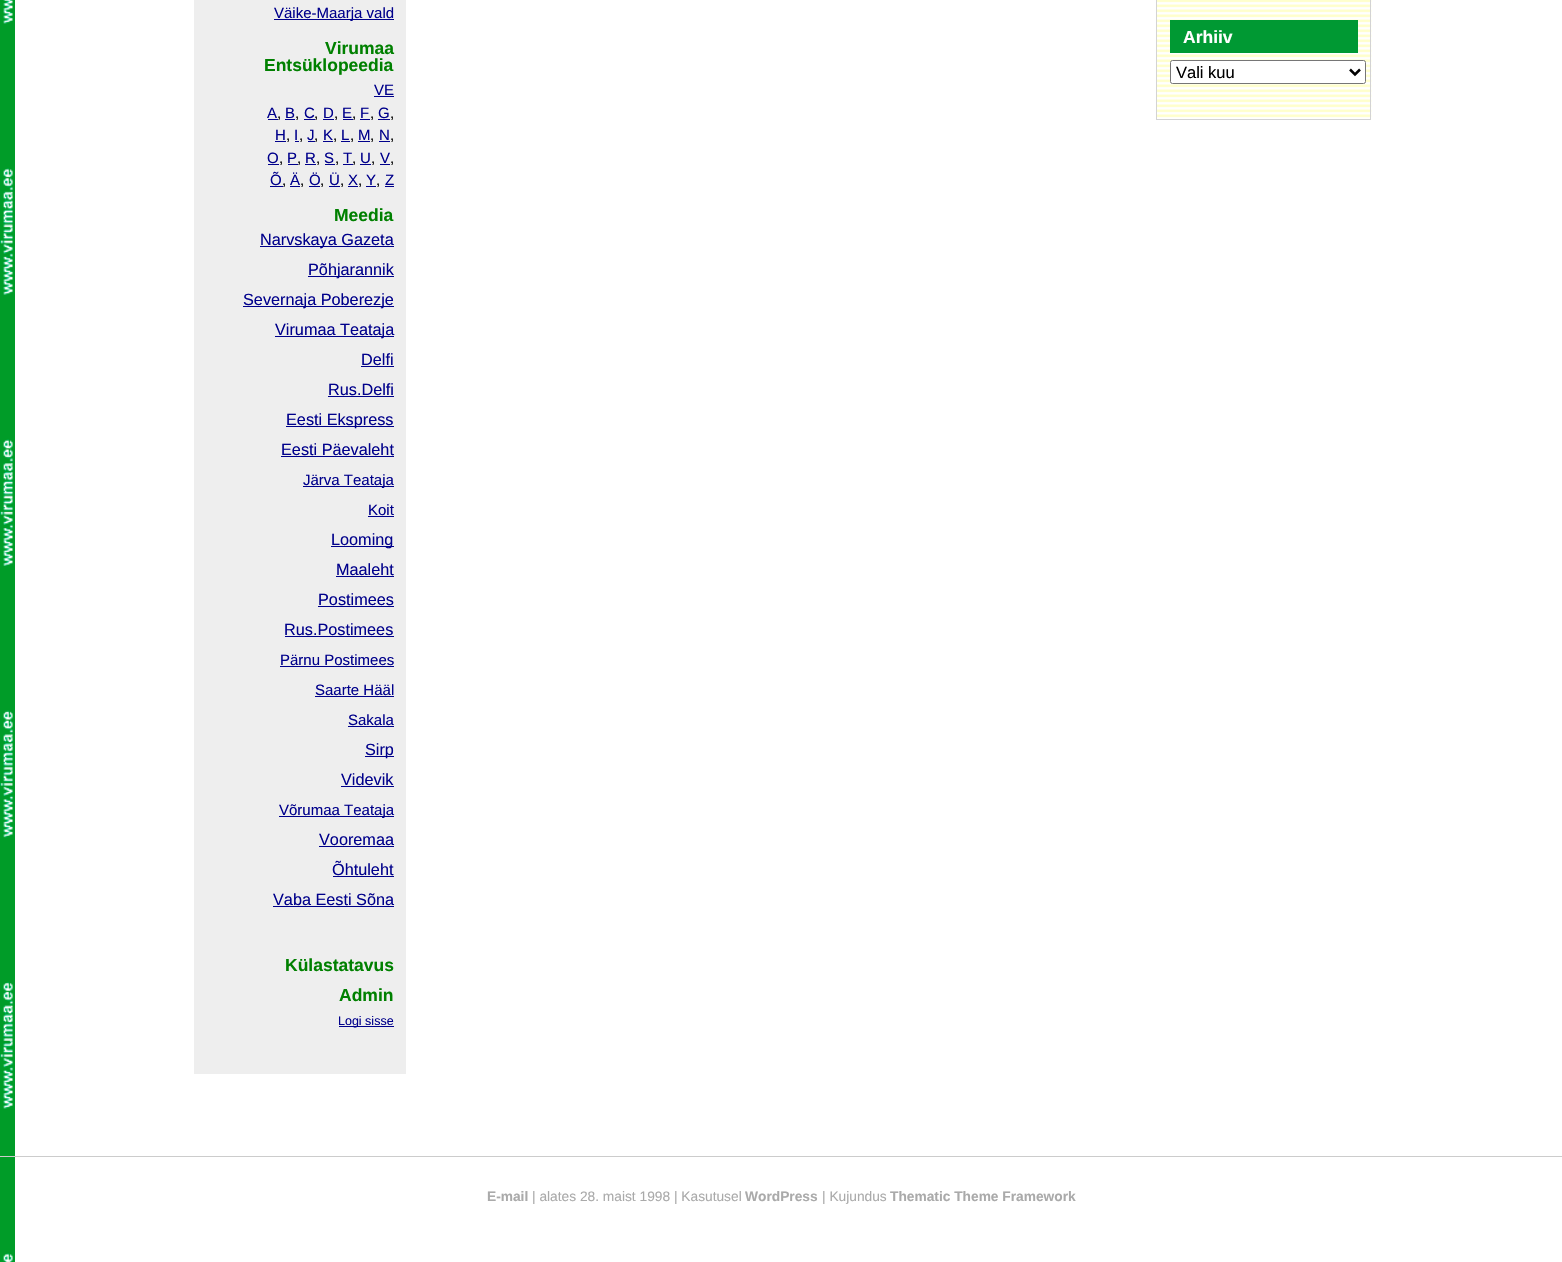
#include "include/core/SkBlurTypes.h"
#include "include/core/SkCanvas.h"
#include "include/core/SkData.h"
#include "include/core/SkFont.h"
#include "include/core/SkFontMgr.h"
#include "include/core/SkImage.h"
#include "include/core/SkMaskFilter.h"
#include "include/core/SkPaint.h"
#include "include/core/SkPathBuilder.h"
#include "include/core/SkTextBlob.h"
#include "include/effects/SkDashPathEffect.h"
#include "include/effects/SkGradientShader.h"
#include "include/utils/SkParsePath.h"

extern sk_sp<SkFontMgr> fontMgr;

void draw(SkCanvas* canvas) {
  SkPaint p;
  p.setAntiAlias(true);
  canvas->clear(SK_ColorWHITE);
  canvas->drawImageRect(SkImages::DeferredFromEncodedData(SkData::MakeFromFileName("images/1.png")), SkRect::MakeLTRB(0, 0, 15, 1262), SkSamplingOptions());
  p.setColor(SkColorSetRGB(238, 238, 238));
  canvas->drawRect(SkRect::MakeLTRB(194, 0, 406, 1074), p);
  p.setColor(SkColorSetRGB(0, 0, 139));
  canvas->drawRect(SkRect::MakeLTRB(274, 19, 394, 20), p);
  canvas->drawRect(SkRect::MakeLTRB(374, 96, 394, 97), p);
  canvas->drawRect(SkRect::MakeLTRB(268, 119, 278, 120), p);
  canvas->drawRect(SkRect::MakeLTRB(285, 119, 295, 120), p);
  canvas->drawRect(SkRect::MakeLTRB(304, 119, 315, 120), p);
  canvas->drawRect(SkRect::MakeLTRB(323, 119, 334, 120), p);
  canvas->drawRect(SkRect::MakeLTRB(343, 119, 353, 120), p);
  canvas->drawRect(SkRect::MakeLTRB(360, 119, 370, 120), p);
  canvas->drawRect(SkRect::MakeLTRB(378, 119, 390, 120), p);
  canvas->drawRect(SkRect::MakeLTRB(275, 141, 286, 142), p);
  canvas->drawRect(SkRect::MakeLTRB(295, 141, 299, 142), p);
  canvas->drawRect(SkRect::MakeLTRB(308, 141, 315, 142), p);
  canvas->drawRect(SkRect::MakeLTRB(323, 141, 333, 142), p);
  canvas->drawRect(SkRect::MakeLTRB(341, 141, 350, 142), p);
  canvas->drawRect(SkRect::MakeLTRB(358, 141, 370, 142), p);
  canvas->drawRect(SkRect::MakeLTRB(379, 141, 390, 142), p);
  canvas->drawRect(SkRect::MakeLTRB(268, 164, 279, 165), p);
  canvas->drawRect(SkRect::MakeLTRB(288, 164, 298, 165), p);
  canvas->drawRect(SkRect::MakeLTRB(305, 164, 316, 165), p);
  canvas->drawRect(SkRect::MakeLTRB(325, 164, 335, 165), p);
  canvas->drawRect(SkRect::MakeLTRB(343, 164, 353, 165), p);
  canvas->drawRect(SkRect::MakeLTRB(360, 164, 371, 165), p);
  canvas->drawRect(SkRect::MakeLTRB(380, 164, 390, 165), p);
  canvas->drawRect(SkRect::MakeLTRB(270, 186, 283, 187), p);
  canvas->drawRect(SkRect::MakeLTRB(290, 186, 300, 187), p);
  canvas->drawRect(SkRect::MakeLTRB(309, 186, 320, 187), p);
  canvas->drawRect(SkRect::MakeLTRB(329, 186, 340, 187), p);
  canvas->drawRect(SkRect::MakeLTRB(348, 186, 358, 187), p);
  canvas->drawRect(SkRect::MakeLTRB(366, 186, 376, 187), p);
  canvas->drawRect(SkRect::MakeLTRB(385, 186, 394, 187), p);
  canvas->drawRect(SkRect::MakeLTRB(260, 246, 394, 247), p);
  canvas->drawRect(SkRect::MakeLTRB(308, 276, 394, 277), p);
  canvas->drawRect(SkRect::MakeLTRB(243, 306, 394, 307), p);
  canvas->drawRect(SkRect::MakeLTRB(275, 336, 394, 337), p);
  canvas->drawRect(SkRect::MakeLTRB(361, 366, 394, 367), p);
  canvas->drawRect(SkRect::MakeLTRB(328, 396, 394, 397), p);
  canvas->drawRect(SkRect::MakeLTRB(286, 426, 394, 427), p);
  canvas->drawRect(SkRect::MakeLTRB(281, 456, 394, 457), p);
  canvas->drawRect(SkRect::MakeLTRB(303, 486, 394, 487), p);
  canvas->drawRect(SkRect::MakeLTRB(368, 516, 394, 517), p);
  canvas->drawRect(SkRect::MakeLTRB(331, 546, 394, 547), p);
  canvas->drawRect(SkRect::MakeLTRB(336, 576, 394, 577), p);
  canvas->drawRect(SkRect::MakeLTRB(318, 606, 394, 607), p);
  canvas->drawRect(SkRect::MakeLTRB(285, 636, 394, 637), p);
  canvas->drawRect(SkRect::MakeLTRB(280, 666, 394, 667), p);
  canvas->drawRect(SkRect::MakeLTRB(315, 696, 394, 697), p);
  canvas->drawRect(SkRect::MakeLTRB(348, 726, 394, 727), p);
  canvas->drawRect(SkRect::MakeLTRB(365, 756, 394, 757), p);
  canvas->drawRect(SkRect::MakeLTRB(341, 786, 394, 787), p);
  canvas->drawRect(SkRect::MakeLTRB(279, 816, 394, 817), p);
  canvas->drawRect(SkRect::MakeLTRB(319, 846, 394, 847), p);
  canvas->drawRect(SkRect::MakeLTRB(333, 876, 394, 877), p);
  canvas->drawRect(SkRect::MakeLTRB(273, 906, 394, 907), p);
  canvas->drawRect(SkRect::MakeLTRB(339, 1026, 394, 1027), p);
  canvas->drawImageRect(SkImages::DeferredFromEncodedData(SkData::MakeFromFileName("images/2.png")), SkRect::MakeLTRB(1157, 0, 1372, 120), SkSamplingOptions());
  p.setStyle(SkPaint::kStroke_Style);
  p.setStrokeWidth(1);
  p.setColor(SkColorSetRGB(211, 211, 211));
  canvas->drawRect(SkRect::MakeLTRB(1156.5f, -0.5f, 1370.5f, 119.5f), p);
  p.setStyle(SkPaint::kFill_Style);
  p.setColor(SkColorSetRGB(0, 153, 51));
  canvas->drawRect(SkRect::MakeLTRB(1170, 20, 1358, 53), p);
  p.setColor(SK_ColorWHITE);
  canvas->drawRoundRect(SkRect::MakeLTRB(1170.5f, 60.5f, 1365.5f, 83.5f), 2, 2, p);
  p.setStyle(SkPaint::kStroke_Style);
  p.setColor(SkColorSetRGB(118, 118, 118));
  canvas->drawRoundRect(SkRect::MakeLTRB(1170.5f, 60.5f, 1365.5f, 83.5f), 2, 2, p);
  p.setStrokeWidth(2.5f);
  p.setColor(SK_ColorBLACK);
  canvas->drawPath(SkPathBuilder().moveTo(1350, 69.5f).lineTo(1355, 74.5f).lineTo(1360, 69.5f).detach(), p);
  p.setStyle(SkPaint::kFill_Style);
  p.setColor(SkColorSetRGB(204, 204, 204));
  canvas->drawRect(SkRect::MakeLTRB(0, 1156, 1562, 1157), p);
  SkFont font1(fontMgr->matchFamilyStyle("Liberation Sans", SkFontStyle::Normal()), 15);
  font1.setSubpixel(true);
  p.setColor(SkColorSetRGB(0, 0, 139));
  canvas->drawString("Väike-Maarja vald", 274, 18, font1, p);
  SkFont font2(fontMgr->matchFamilyStyle("Liberation Sans", SkFontStyle::Bold()), 17.5f);
  font2.setSubpixel(true);
  p.setColor(SkColorSetRGB(0, 128, 0));
  canvas->drawString("Virumaa", 325, 54, font2, p);
  canvas->drawString("Entsüklopeedia", 264, 71, font2, p);
  p.setColor(SkColorSetRGB(0, 0, 139));
  canvas->drawString("VE", 374, 95, font1, p);
  canvas->drawString("A", 267, 118, font1, p);
  p.setColor(SK_ColorBLACK);
  canvas->drawString(",", 277, 118, font1, p);
  p.setColor(SkColorSetRGB(0, 0, 139));
  canvas->drawString("B", 285, 118, font1, p);
  p.setColor(SK_ColorBLACK);
  canvas->drawString(",", 295, 118, font1, p);
  p.setColor(SkColorSetRGB(0, 0, 139));
  canvas->drawString("C", 304, 118, font1, p);
  p.setColor(SK_ColorBLACK);
  canvas->drawString(",", 314, 118, font1, p);
  p.setColor(SkColorSetRGB(0, 0, 139));
  canvas->drawString("D", 323, 118, font1, p);
  p.setColor(SK_ColorBLACK);
  canvas->drawString(",", 334, 118, font1, p);
  p.setColor(SkColorSetRGB(0, 0, 139));
  canvas->drawString("E", 342, 118, font1, p);
  p.setColor(SK_ColorBLACK);
  canvas->drawString(",", 352, 118, font1, p);
  p.setColor(SkColorSetRGB(0, 0, 139));
  canvas->drawString("F", 360, 118, font1, p);
  p.setColor(SK_ColorBLACK);
  canvas->drawString(",", 370, 118, font1, p);
  p.setColor(SkColorSetRGB(0, 0, 139));
  canvas->drawString("G", 378, 118, font1, p);
  p.setColor(SK_ColorBLACK);
  canvas->drawString(",", 390, 118, font1, p);
  p.setColor(SkColorSetRGB(0, 0, 139));
  canvas->drawString("H", 275, 140, font1, p);
  p.setColor(SK_ColorBLACK);
  canvas->drawString(",", 286, 140, font1, p);
  p.setColor(SkColorSetRGB(0, 0, 139));
  canvas->drawString("I", 294, 140, font1, p);
  p.setColor(SK_ColorBLACK);
  canvas->drawString(",", 299, 140, font1, p);
  p.setColor(SkColorSetRGB(0, 0, 139));
  canvas->drawString("J", 307, 140, font1, p);
  p.setColor(SK_ColorBLACK);
  canvas->drawString(",", 314, 140, font1, p);
  p.setColor(SkColorSetRGB(0, 0, 139));
  canvas->drawString("K", 323, 140, font1, p);
  p.setColor(SK_ColorBLACK);
  canvas->drawString(",", 333, 140, font1, p);
  p.setColor(SkColorSetRGB(0, 0, 139));
  canvas->drawString("L", 341, 140, font1, p);
  p.setColor(SK_ColorBLACK);
  canvas->drawString(",", 350, 140, font1, p);
  p.setColor(SkColorSetRGB(0, 0, 139));
  canvas->drawString("M", 358, 140, font1, p);
  p.setColor(SK_ColorBLACK);
  canvas->drawString(",", 370, 140, font1, p);
  p.setColor(SkColorSetRGB(0, 0, 139));
  canvas->drawString("N", 379, 140, font1, p);
  p.setColor(SK_ColorBLACK);
  canvas->drawString(",", 390, 140, font1, p);
  p.setColor(SkColorSetRGB(0, 0, 139));
  canvas->drawString("O", 267, 163, font1, p);
  p.setColor(SK_ColorBLACK);
  canvas->drawString(",", 279, 163, font1, p);
  p.setColor(SkColorSetRGB(0, 0, 139));
  canvas->drawString("P", 287, 163, font1, p);
  p.setColor(SK_ColorBLACK);
  canvas->drawString(",", 297, 163, font1, p);
  p.setColor(SkColorSetRGB(0, 0, 139));
  canvas->drawString("R", 305, 163, font1, p);
  p.setColor(SK_ColorBLACK);
  canvas->drawString(",", 316, 163, font1, p);
  p.setColor(SkColorSetRGB(0, 0, 139));
  canvas->drawString("S", 324, 163, font1, p);
  p.setColor(SK_ColorBLACK);
  canvas->drawString(",", 335, 163, font1, p);
  p.setColor(SkColorSetRGB(0, 0, 139));
  canvas->drawString("T", 343, 163, font1, p);
  p.setColor(SK_ColorBLACK);
  canvas->drawString(",", 352, 163, font1, p);
  p.setColor(SkColorSetRGB(0, 0, 139));
  canvas->drawString("U", 360, 163, font1, p);
  p.setColor(SK_ColorBLACK);
  canvas->drawString(",", 371, 163, font1, p);
  p.setColor(SkColorSetRGB(0, 0, 139));
  canvas->drawString("V", 380, 163, font1, p);
  p.setColor(SK_ColorBLACK);
  canvas->drawString(",", 390, 163, font1, p);
  p.setColor(SkColorSetRGB(0, 0, 139));
  canvas->drawString("Õ", 270, 185, font1, p);
  p.setColor(SK_ColorBLACK);
  canvas->drawString(",", 282, 185, font1, p);
  p.setColor(SkColorSetRGB(0, 0, 139));
  canvas->drawString("Ä", 290, 185, font1, p);
  p.setColor(SK_ColorBLACK);
  canvas->drawString(",", 300, 185, font1, p);
  p.setColor(SkColorSetRGB(0, 0, 139));
  canvas->drawString("Ö", 309, 185, font1, p);
  p.setColor(SK_ColorBLACK);
  canvas->drawString(",", 320, 185, font1, p);
  p.setColor(SkColorSetRGB(0, 0, 139));
  canvas->drawString("Ü", 329, 185, font1, p);
  p.setColor(SK_ColorBLACK);
  canvas->drawString(",", 340, 185, font1, p);
  p.setColor(SkColorSetRGB(0, 0, 139));
  canvas->drawString("X", 348, 185, font1, p);
  p.setColor(SK_ColorBLACK);
  canvas->drawString(",", 358, 185, font1, p);
  p.setColor(SkColorSetRGB(0, 0, 139));
  canvas->drawString("Y", 366, 185, font1, p);
  p.setColor(SK_ColorBLACK);
  canvas->drawString(",", 376, 185, font1, p);
  p.setColor(SkColorSetRGB(0, 0, 139));
  canvas->drawString("Z", 385, 185, font1, p);
  p.setColor(SkColorSetRGB(0, 128, 0));
  canvas->drawString("Meedia", 334, 221, font2, p);
  SkFont font3(fontMgr->matchFamilyStyle("Liberation Sans", SkFontStyle::Normal()), 16.25f);
  font3.setSubpixel(true);
  p.setColor(SkColorSetRGB(0, 0, 139));
  canvas->drawString("Narvskaya Gazeta", 260, 245, font3, p);
  canvas->drawString("Põhjarannik", 308, 275, font3, p);
  canvas->drawString("Severnaja Poberezje", 243, 305, font3, p);
  canvas->drawString("Virumaa Teataja", 275, 335, font3, p);
  canvas->drawString("Delfi", 361, 365, font3, p);
  canvas->drawString("Rus.Delfi", 328, 395, font3, p);
  canvas->drawString("Eesti Ekspress", 286, 425, font3, p);
  canvas->drawString("Eesti Päevaleht", 281, 455, font3, p);
  canvas->drawString("Järva Teataja", 303, 485, font1, p);
  canvas->drawString("Koit", 368, 515, font1, p);
  canvas->drawString("Looming", 331, 545, font3, p);
  canvas->drawString("Maaleht", 336, 575, font3, p);
  canvas->drawString("Postimees", 318, 605, font3, p);
  canvas->drawString("Rus.Postimees", 284, 635, font3, p);
  canvas->drawString("Pärnu Postimees", 280, 665, font1, p);
  canvas->drawString("Saarte Hääl", 315, 695, font1, p);
  canvas->drawString("Sakala", 348, 725, font1, p);
  canvas->drawString("Sirp", 365, 755, font3, p);
  canvas->drawString("Videvik", 341, 785, font3, p);
  canvas->drawString("Võrumaa Teataja", 279, 815, font1, p);
  canvas->drawString("Vooremaa", 319, 845, font3, p);
  canvas->drawString("Õhtuleht", 332, 875, font3, p);
  canvas->drawString("Vaba Eesti Sõna", 273, 905, font3, p);
  p.setColor(SkColorSetRGB(0, 128, 0));
  canvas->drawString("Külastatavus", 285, 971, font2, p);
  canvas->drawString("Admin", 339, 1001, font2, p);
  SkFont font4(fontMgr->matchFamilyStyle("Liberation Sans", SkFontStyle::Normal()), 12.5f);
  font4.setSubpixel(true);
  p.setColor(SkColorSetRGB(0, 0, 139));
  canvas->drawString("Logi sisse", 338, 1025, font4, p);
  p.setColor(SK_ColorWHITE);
  canvas->drawString("Arhiiv", 1183, 43, font2, p);
  SkFont font5(fontMgr->matchFamilyStyle("Liberation Sans", SkFontStyle::Normal()), 16.5f);
  font5.setSubpixel(true);
  p.setColor(SK_ColorBLACK);
  canvas->drawString("Vali kuu", 1176, 78, font5, p);
  SkFont font6(fontMgr->matchFamilyStyle("Liberation Sans", SkFontStyle::Bold()), 13.75f);
  font6.setSubpixel(true);
  p.setColor(SkColorSetRGB(170, 170, 170));
  canvas->drawString("E-mail", 487, 1201, font6, p);
  SkFont font7(fontMgr->matchFamilyStyle("Liberation Sans", SkFontStyle::Normal()), 13.75f);
  font7.setSubpixel(true);
  canvas->drawString("| alates 28. maist 1998 | Kasutusel", 532, 1201, font7, p);
  canvas->drawString("WordPress", 745, 1201, font6, p);
  canvas->drawString("| Kujundus", 822, 1201, font7, p);
  canvas->drawString("Thematic Theme Framework", 890, 1201, font6, p);
}
